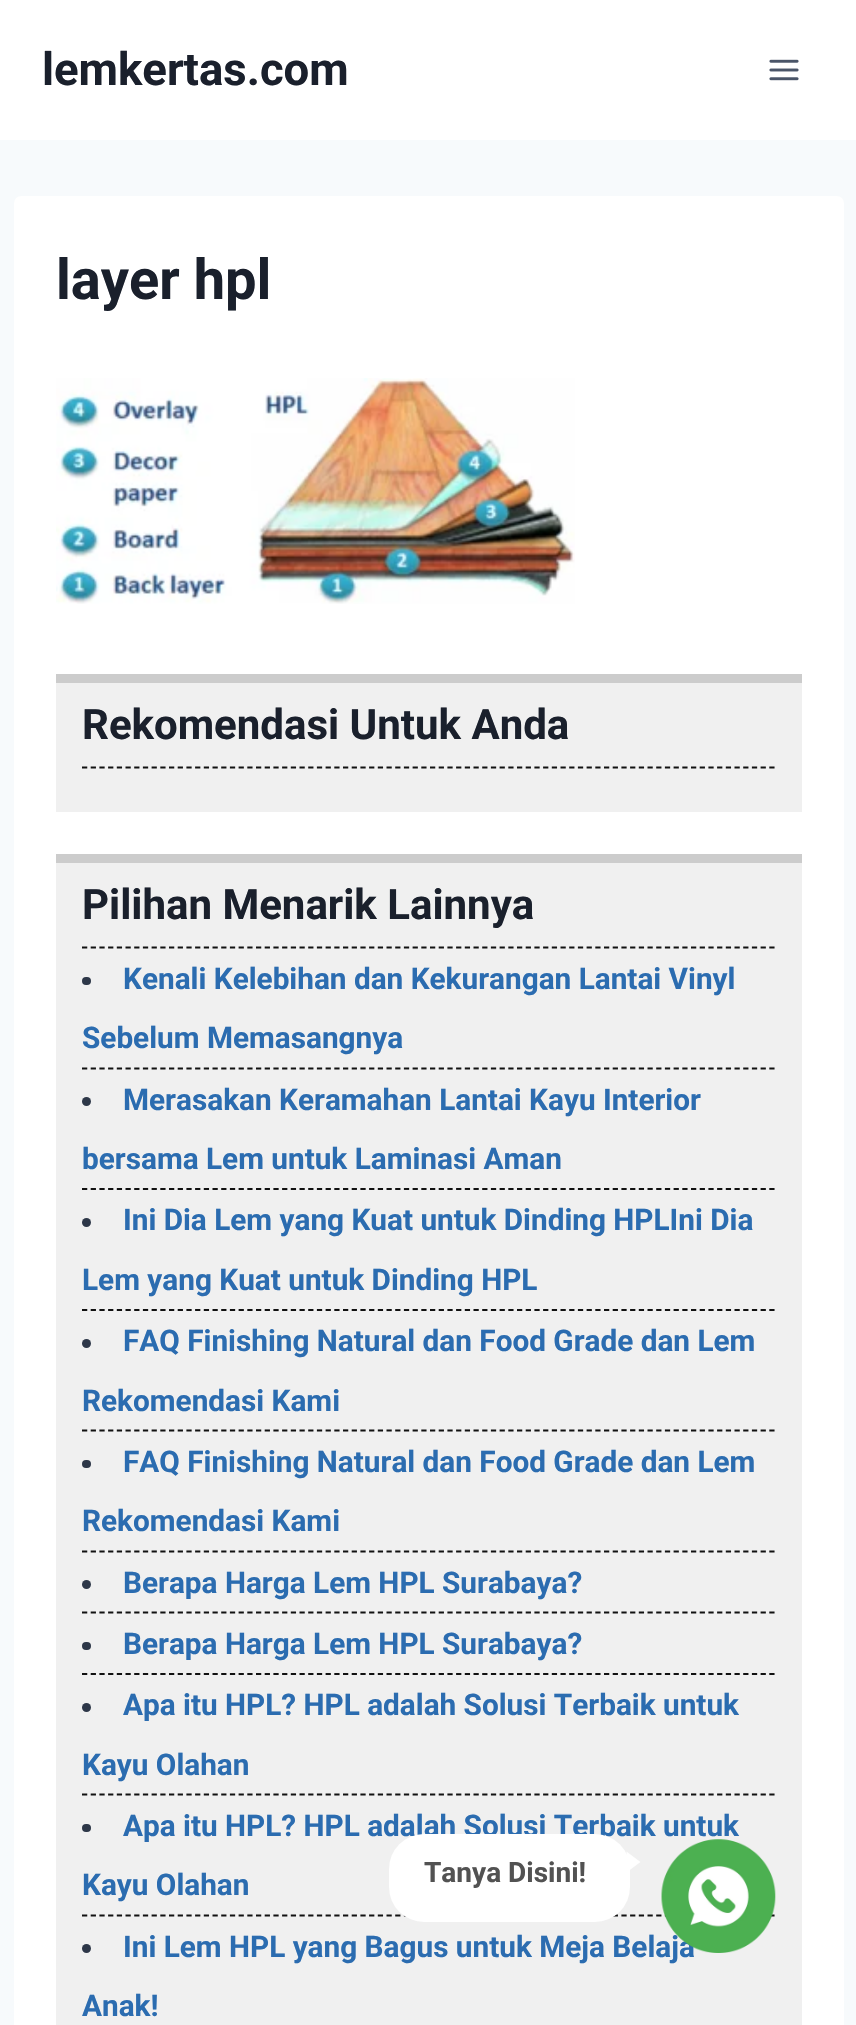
#include "include/core/SkBlurTypes.h"
#include "include/core/SkCanvas.h"
#include "include/core/SkData.h"
#include "include/core/SkFont.h"
#include "include/core/SkFontMgr.h"
#include "include/core/SkImage.h"
#include "include/core/SkMaskFilter.h"
#include "include/core/SkPaint.h"
#include "include/core/SkPathBuilder.h"
#include "include/core/SkTextBlob.h"
#include "include/effects/SkDashPathEffect.h"
#include "include/effects/SkGradientShader.h"
#include "include/utils/SkParsePath.h"

extern sk_sp<SkFontMgr> fontMgr;

void draw(SkCanvas* canvas) {
  SkPaint p;
  p.setAntiAlias(true);
  canvas->clear(SkColorSetRGB(247, 250, 252));
  p.setColor(SK_ColorWHITE);
  canvas->drawRect(SkRect::MakeLTRB(0, 0, 856, 140), p);
  canvas->drawImageRect(SkImages::DeferredFromEncodedData(SkData::MakeFromFileName("images/1.png")), SkRect::MakeLTRB(769, 59, 799, 81), SkSamplingOptions());
  canvas->drawRoundRect(SkRect::MakeLTRB(14, 196, 844, 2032), 7, 7, p);
  canvas->drawImageRect(SkImages::DeferredFromEncodedData(SkData::MakeFromFileName("images/2.png")), SkRect::MakeLTRB(56, 378, 575, 604), SkSamplingOptions());
  p.setColor(SkColorSetRGB(240, 240, 240));
  canvas->drawRect(SkRect::MakeLTRB(56, 683, 802, 812), p);
  p.setColor(SkColorSetRGB(204, 204, 204));
  canvas->drawRect(SkRect::MakeLTRB(56, 674, 802, 683), p);
  p.setStyle(SkPaint::kStroke_Style);
  p.setStrokeWidth(1.8f);
  p.setColor(SkColorSetRGB(17, 17, 17));
  p.setPathEffect(SkDashPathEffect::Make({{5.25f, 3.45f}}, 0));
  canvas->drawPath(SkPathBuilder().moveTo(82, 767.5f).lineTo(775, 767.5f).detach(), p);
  p.setPathEffect(nullptr);
  p.setStyle(SkPaint::kFill_Style);
  p.setColor(SkColorSetRGB(240, 240, 240));
  canvas->drawRect(SkRect::MakeLTRB(56, 863, 802, 2025), p);
  p.setColor(SkColorSetRGB(204, 204, 204));
  canvas->drawRect(SkRect::MakeLTRB(56, 854, 802, 863), p);
  p.setStyle(SkPaint::kStroke_Style);
  p.setColor(SkColorSetRGB(17, 17, 17));
  p.setPathEffect(SkDashPathEffect::Make({{5.25f, 3.45f}}, 0));
  canvas->drawPath(SkPathBuilder().moveTo(82, 947.5f).lineTo(775, 947.5f).detach(), p);
  p.setPathEffect(nullptr);
  p.setPathEffect(SkDashPathEffect::Make({{5.25f, 3.45f}}, 0));
  canvas->drawPath(SkPathBuilder().moveTo(82, 1068.5f).lineTo(775, 1068.5f).detach(), p);
  p.setPathEffect(nullptr);
  p.setStyle(SkPaint::kFill_Style);
  p.setColor(SkColorSetRGB(45, 55, 72));
  canvas->drawRoundRect(SkRect::MakeLTRB(82, 977, 91, 985), 4, 4, p);
  p.setStyle(SkPaint::kStroke_Style);
  p.setColor(SkColorSetRGB(17, 17, 17));
  p.setPathEffect(SkDashPathEffect::Make({{5.25f, 3.45f}}, 0));
  canvas->drawPath(SkPathBuilder().moveTo(82, 1189).lineTo(775, 1189).detach(), p);
  p.setPathEffect(nullptr);
  p.setStyle(SkPaint::kFill_Style);
  p.setColor(SkColorSetRGB(45, 55, 72));
  canvas->drawCircle(86.5f, 1101.5f, 4.5f, p);
  p.setStyle(SkPaint::kStroke_Style);
  p.setColor(SkColorSetRGB(17, 17, 17));
  p.setPathEffect(SkDashPathEffect::Make({{5.25f, 3.45f}}, 0));
  canvas->drawPath(SkPathBuilder().moveTo(82, 1310).lineTo(775, 1310).detach(), p);
  p.setPathEffect(nullptr);
  p.setStyle(SkPaint::kFill_Style);
  p.setColor(SkColorSetRGB(45, 55, 72));
  canvas->drawCircle(86.5f, 1222.5f, 4.5f, p);
  p.setStyle(SkPaint::kStroke_Style);
  p.setColor(SkColorSetRGB(17, 17, 17));
  p.setPathEffect(SkDashPathEffect::Make({{5.25f, 3.45f}}, 0));
  canvas->drawPath(SkPathBuilder().moveTo(82, 1430.5f).lineTo(775, 1430.5f).detach(), p);
  p.setPathEffect(nullptr);
  p.setStyle(SkPaint::kFill_Style);
  p.setColor(SkColorSetRGB(45, 55, 72));
  canvas->drawCircle(86.5f, 1343.5f, 4.5f, p);
  p.setStyle(SkPaint::kStroke_Style);
  p.setColor(SkColorSetRGB(17, 17, 17));
  p.setPathEffect(SkDashPathEffect::Make({{5.25f, 3.45f}}, 0));
  canvas->drawPath(SkPathBuilder().moveTo(82, 1551.5f).lineTo(775, 1551.5f).detach(), p);
  p.setPathEffect(nullptr);
  p.setStyle(SkPaint::kFill_Style);
  p.setColor(SkColorSetRGB(45, 55, 72));
  canvas->drawRoundRect(SkRect::MakeLTRB(82, 1460, 91, 1468), 4, 4, p);
  p.setStyle(SkPaint::kStroke_Style);
  p.setColor(SkColorSetRGB(17, 17, 17));
  p.setPathEffect(SkDashPathEffect::Make({{5.25f, 3.45f}}, 0));
  canvas->drawPath(SkPathBuilder().moveTo(82, 1612.5f).lineTo(775, 1612.5f).detach(), p);
  p.setPathEffect(nullptr);
  p.setStyle(SkPaint::kFill_Style);
  p.setColor(SkColorSetRGB(45, 55, 72));
  canvas->drawCircle(86.5f, 1584.5f, 4.5f, p);
  p.setStyle(SkPaint::kStroke_Style);
  p.setColor(SkColorSetRGB(17, 17, 17));
  p.setPathEffect(SkDashPathEffect::Make({{5.25f, 3.45f}}, 0));
  canvas->drawPath(SkPathBuilder().moveTo(82, 1674).lineTo(775, 1674).detach(), p);
  p.setPathEffect(nullptr);
  p.setStyle(SkPaint::kFill_Style);
  p.setColor(SkColorSetRGB(45, 55, 72));
  canvas->drawRoundRect(SkRect::MakeLTRB(82, 1642, 91, 1650), 4, 4, p);
  p.setStyle(SkPaint::kStroke_Style);
  p.setColor(SkColorSetRGB(17, 17, 17));
  p.setPathEffect(SkDashPathEffect::Make({{5.25f, 3.45f}}, 0));
  canvas->drawPath(SkPathBuilder().moveTo(82, 1794.5f).lineTo(775, 1794.5f).detach(), p);
  p.setPathEffect(nullptr);
  p.setStyle(SkPaint::kFill_Style);
  p.setColor(SkColorSetRGB(45, 55, 72));
  canvas->drawCircle(86.5f, 1707.5f, 4.5f, p);
  p.setStyle(SkPaint::kStroke_Style);
  p.setColor(SkColorSetRGB(17, 17, 17));
  p.setPathEffect(SkDashPathEffect::Make({{5.25f, 3.45f}}, 0));
  canvas->drawPath(SkPathBuilder().moveTo(82, 1915.5f).lineTo(775, 1915.5f).detach(), p);
  p.setPathEffect(nullptr);
  p.setStyle(SkPaint::kFill_Style);
  p.setColor(SkColorSetRGB(45, 55, 72));
  canvas->drawRoundRect(SkRect::MakeLTRB(82, 1824, 91, 1832), 4, 4, p);
  canvas->drawCircle(86.5f, 1948.5f, 4.5f, p);
  SkFont font1(fontMgr->matchFamilyStyle("Roboto", SkFontStyle::Bold()), 45.5f);
  font1.setSubpixel(true);
  p.setColor(SkColorSetRGB(26, 32, 44));
  canvas->drawString("lemkertas.com", 42, 85, font1, p);
  SkFont font2(fontMgr->matchFamilyStyle("Roboto", SkFontStyle::Bold()), 56);
  font2.setSubpixel(true);
  canvas->drawString("layer hpl", 56, 299, font2, p);
  SkFont font3(fontMgr->matchFamilyStyle("Roboto", SkFontStyle::Bold()), 42);
  font3.setSubpixel(true);
  canvas->drawString("Rekomendasi Untuk Anda", 82, 739, font3, p);
  canvas->drawString("Pilihan Menarik Lainnya", 82, 919, font3, p);
  SkFont font4(fontMgr->matchFamilyStyle("Roboto", SkFontStyle::Bold()), 29.75f);
  font4.setSubpixel(true);
  p.setColor(SkColorSetRGB(43, 108, 176));
  canvas->drawString("Kenali Kelebihan dan Kekurangan Lantai Vinyl", 123, 989, font4, p);
  canvas->drawString("Sebelum Memasangnya", 82, 1048, font4, p);
  canvas->drawString("Merasakan Keramahan Lantai Kayu Interior", 123, 1110, font4, p);
  canvas->drawString("bersama Lem untuk Laminasi Aman", 82, 1169, font4, p);
  canvas->drawString("Ini Dia Lem yang Kuat untuk Dinding HPLIni Dia", 123, 1230, font4, p);
  canvas->drawString("Lem yang Kuat untuk Dinding HPL", 82, 1290, font4, p);
  canvas->drawString("FAQ Finishing Natural dan Food Grade dan Lem", 123, 1351, font4, p);
  canvas->drawString("Rekomendasi Kami", 82, 1411, font4, p);
  canvas->drawString("FAQ Finishing Natural dan Food Grade dan Lem", 123, 1472, font4, p);
  canvas->drawString("Rekomendasi Kami", 82, 1531, font4, p);
  canvas->drawString("Berapa Harga Lem HPL Surabaya?", 123, 1593, font4, p);
  canvas->drawString("Berapa Harga Lem HPL Surabaya?", 123, 1654, font4, p);
  canvas->drawString("Apa itu HPL? HPL adalah Solusi Terbaik untuk", 123, 1715, font4, p);
  canvas->drawString("Kayu Olahan", 82, 1775, font4, p);
  canvas->drawString("Apa itu HPL? HPL adalah Solusi Terbaik untuk", 123, 1836, font4, p);
  canvas->drawString("Kayu Olahan", 82, 1895, font4, p);
  canvas->drawString("Ini Lem HPL yang Bagus untuk Meja Belaja", 123, 1957, font4, p);
  canvas->drawString("Anak!", 82, 2016, font4, p);
  p.setColor(SK_ColorWHITE);
  canvas->drawRoundRect(SkRect::MakeLTRB(389, 1834, 630, 1922), 35, 35, p);
  SkFont font5(fontMgr->matchFamilyStyle("Roboto", SkFontStyle::Bold()), 28);
  font5.setSubpixel(true);
  p.setColor(SkColorSetRGB(82, 82, 82));
  canvas->drawString("Tanya Disini!", 424, 1882, font5, p);
  p.setColor(SK_ColorWHITE);
  canvas->drawPath(SkPathBuilder().moveTo(626.5f, 1872.5f).lineTo(626.5f, 1851.5f).lineTo(640.5f, 1862).close().detach(), p);
  canvas->drawImageRect(SkImages::DeferredFromEncodedData(SkData::MakeFromFileName("images/3.png")), SkRect::MakeLTRB(661, 1839, 776, 1953), SkSamplingOptions());
}
